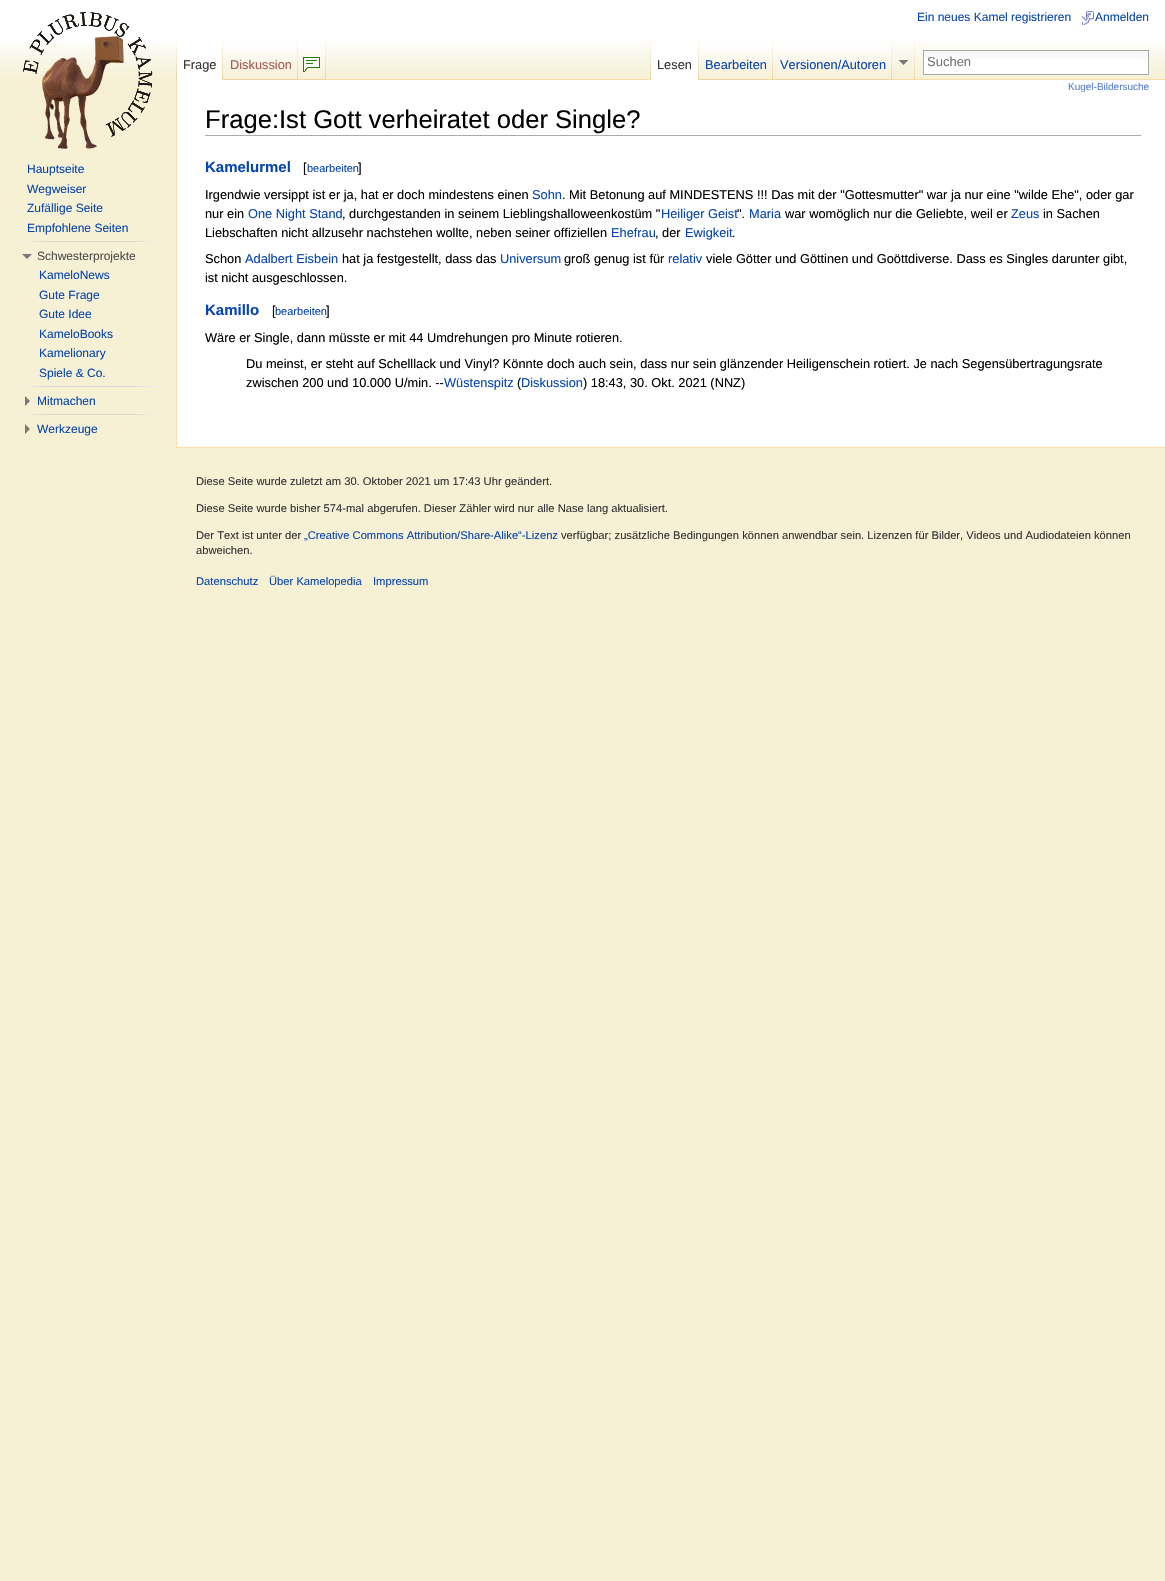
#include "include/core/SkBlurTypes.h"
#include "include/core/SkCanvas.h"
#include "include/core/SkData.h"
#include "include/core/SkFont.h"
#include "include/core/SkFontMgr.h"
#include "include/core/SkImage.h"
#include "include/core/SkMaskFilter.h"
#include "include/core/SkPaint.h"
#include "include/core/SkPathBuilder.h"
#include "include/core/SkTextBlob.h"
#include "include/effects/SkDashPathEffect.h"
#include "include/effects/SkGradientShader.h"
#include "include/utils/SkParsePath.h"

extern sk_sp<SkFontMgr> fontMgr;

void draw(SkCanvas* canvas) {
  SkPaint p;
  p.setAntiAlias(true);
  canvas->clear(SkColorSetRGB(246, 240, 212));
  p.setColor(SK_ColorWHITE);
  canvas->drawRect(SkRect::MakeLTRB(0, 0, 1165, 41), p);
  canvas->drawImageRect(SkImages::DeferredFromEncodedData(SkData::MakeFromFileName("images/1.png")), SkRect::MakeLTRB(0, 41, 1165, 80), SkSamplingOptions());
  canvas->drawImageRect(SkImages::DeferredFromEncodedData(SkData::MakeFromFileName("images/2.png")), SkRect::MakeLTRB(1081, 11, 1094, 25), SkSamplingOptions());
  p.setColor(SkColorSetRGB(249, 223, 167));
  canvas->drawRect(SkRect::MakeLTRB(176, 447, 1165, 448), p);
  canvas->drawRect(SkRect::MakeLTRB(176, 79, 177, 448), p);
  canvas->drawImageRect(SkImages::DeferredFromEncodedData(SkData::MakeFromFileName("images/3.png")), SkRect::MakeLTRB(176, 40, 177, 80), SkSamplingOptions());
  p.setColor(SK_ColorWHITE);
  canvas->drawRect(SkRect::MakeLTRB(177, 41, 222, 80), p);
  canvas->drawImageRect(SkImages::DeferredFromEncodedData(SkData::MakeFromFileName("images/3.png")), SkRect::MakeLTRB(222, 40, 223, 80), SkSamplingOptions());
  canvas->drawImageRect(SkImages::DeferredFromEncodedData(SkData::MakeFromFileName("images/4.png")), SkRect::MakeLTRB(223, 40, 298, 80), SkSamplingOptions());
  canvas->drawImageRect(SkImages::DeferredFromEncodedData(SkData::MakeFromFileName("images/5.png")), SkRect::MakeLTRB(297, 40, 298, 79), SkSamplingOptions());
  canvas->drawImageRect(SkImages::DeferredFromEncodedData(SkData::MakeFromFileName("images/6.png")), SkRect::MakeLTRB(298, 40, 326, 80), SkSamplingOptions());
  canvas->drawImageRect(SkImages::DeferredFromEncodedData(SkData::MakeFromFileName("images/7.png")), SkRect::MakeLTRB(325, 40, 326, 79), SkSamplingOptions());
  canvas->drawImageRect(SkImages::DeferredFromEncodedData(SkData::MakeFromFileName("images/8.png")), SkRect::MakeLTRB(303, 57, 320, 72), SkSamplingOptions());
  p.setColor(SkColorSetRGB(249, 223, 167));
  canvas->drawRect(SkRect::MakeLTRB(326, 79, 1165, 80), p);
  canvas->drawImageRect(SkImages::DeferredFromEncodedData(SkData::MakeFromFileName("images/3.png")), SkRect::MakeLTRB(650, 40, 651, 80), SkSamplingOptions());
  p.setColor(SK_ColorWHITE);
  canvas->drawRect(SkRect::MakeLTRB(651, 41, 698, 80), p);
  canvas->drawImageRect(SkImages::DeferredFromEncodedData(SkData::MakeFromFileName("images/3.png")), SkRect::MakeLTRB(698, 40, 699, 80), SkSamplingOptions());
  canvas->drawImageRect(SkImages::DeferredFromEncodedData(SkData::MakeFromFileName("images/9.png")), SkRect::MakeLTRB(699, 40, 773, 80), SkSamplingOptions());
  canvas->drawImageRect(SkImages::DeferredFromEncodedData(SkData::MakeFromFileName("images/5.png")), SkRect::MakeLTRB(772, 40, 773, 79), SkSamplingOptions());
  canvas->drawImageRect(SkImages::DeferredFromEncodedData(SkData::MakeFromFileName("images/10.png")), SkRect::MakeLTRB(773, 40, 892, 80), SkSamplingOptions());
  canvas->drawImageRect(SkImages::DeferredFromEncodedData(SkData::MakeFromFileName("images/5.png")), SkRect::MakeLTRB(891, 40, 892, 79), SkSamplingOptions());
  p.setColor(SkColorSetRGB(121, 121, 121));
  canvas->drawPath(SkPathBuilder().moveTo(908.5f, 60).lineTo(903.5f, 65).lineTo(898.5f, 60).close().detach(), p);
  canvas->drawImageRect(SkImages::DeferredFromEncodedData(SkData::MakeFromFileName("images/3.png")), SkRect::MakeLTRB(914, 40, 915, 80), SkSamplingOptions());
  p.setColor(SK_ColorWHITE);
  canvas->drawRect(SkRect::MakeLTRB(924, 59, 1148, 74), p);
  canvas->drawImageRect(SkImages::DeferredFromEncodedData(SkData::MakeFromFileName("images/11.png")), SkRect::MakeLTRB(924, 51, 1148, 59), SkSamplingOptions());
  p.setStyle(SkPaint::kStroke_Style);
  p.setStrokeWidth(1);
  p.setColor(SkColorSetRGB(170, 170, 170));
  canvas->drawRect(SkRect::MakeLTRB(923.5f, 50.5f, 1148.5f, 74.5f), p);
  canvas->drawImageRect(SkImages::DeferredFromEncodedData(SkData::MakeFromFileName("images/12.png")), SkRect::MakeLTRB(23, 12, 153, 149), SkSamplingOptions());
  canvas->drawImageRect(SkImages::DeferredFromEncodedData(SkData::MakeFromFileName("images/13.png")), SkRect::MakeLTRB(19, 241, 159, 242), SkSamplingOptions());
  p.setStyle(SkPaint::kFill_Style);
  p.setColor(SkColorSetRGB(121, 121, 121));
  canvas->drawPath(SkPathBuilder().moveTo(32, 254).lineTo(27, 259).lineTo(22, 254).close().detach(), p);
  canvas->drawImageRect(SkImages::DeferredFromEncodedData(SkData::MakeFromFileName("images/13.png")), SkRect::MakeLTRB(19, 386, 159, 387), SkSamplingOptions());
  canvas->drawPath(SkPathBuilder().moveTo(25, 396).lineTo(30, 401).lineTo(25, 406).close().detach(), p);
  canvas->drawImageRect(SkImages::DeferredFromEncodedData(SkData::MakeFromFileName("images/13.png")), SkRect::MakeLTRB(19, 414, 159, 415), SkSamplingOptions());
  canvas->drawPath(SkPathBuilder().moveTo(25, 424).lineTo(30, 429).lineTo(25, 434).close().detach(), p);
  p.setColor(SK_ColorWHITE);
  canvas->drawRect(SkRect::MakeLTRB(177, 80, 1165, 447), p);
  p.setColor(SkColorSetRGB(170, 170, 170));
  canvas->drawRect(SkRect::MakeLTRB(205, 135, 1141, 136), p);
  SkFont font1(fontMgr->matchFamilyStyle("Liberation Sans", SkFontStyle::Normal()), 12);
  font1.setSubpixel(true);
  p.setColor(SkColorSetRGB(6, 69, 173));
  canvas->drawString("Ein neues Kamel registrieren", 917, 21, font1, p);
  canvas->drawString("Anmelden", 1095, 21, font1, p);
  SkFont font2(fontMgr->matchFamilyStyle("Liberation Sans", SkFontStyle::Normal()), 12.8f);
  font2.setSubpixel(true);
  p.setColor(SkColorSetRGB(51, 51, 51));
  canvas->drawString("Frage", 183, 69, font2, p);
  p.setColor(SkColorSetRGB(165, 88, 88));
  canvas->drawString("Diskussion", 230, 69, font2, p);
  p.setColor(SkColorSetRGB(51, 51, 51));
  canvas->drawString("Lesen", 657, 69, font2, p);
  p.setColor(SkColorSetRGB(6, 69, 173));
  canvas->drawString("Bearbeiten", 705, 69, font2, p);
  canvas->drawString("Versionen/Autoren", 780, 69, font2, p);
  SkFont font3(fontMgr->matchFamilyStyle("Liberation Sans", SkFontStyle::Normal()), 13);
  font3.setSubpixel(true);
  p.setColor(SkColorSetRGB(117, 117, 117));
  canvas->drawString("Suchen", 927, 66, font3, p);
  SkFont font4(fontMgr->matchFamilyStyle("Liberation Sans", SkFontStyle::Normal()), 10);
  font4.setSubpixel(true);
  p.setColor(SkColorSetRGB(87, 127, 207));
  canvas->drawString("Kugel-Bildersuche", 1068, 90, font4, p);
  p.setColor(SkColorSetRGB(6, 69, 173));
  canvas->drawString("Hauptseite", 27, 173, font1, p);
  canvas->drawString("Wegweiser", 27, 193, font1, p);
  canvas->drawString("Zufällige Seite", 27, 212, font1, p);
  canvas->drawString("Empfohlene Seiten", 27, 232, font1, p);
  p.setColor(SkColorSetRGB(77, 77, 77));
  canvas->drawString("Schwesterprojekte", 37, 260, font1, p);
  p.setColor(SkColorSetRGB(6, 69, 173));
  canvas->drawString("KameloNews", 39, 279, font1, p);
  canvas->drawString("Gute Frage", 39, 299, font1, p);
  canvas->drawString("Gute Idee", 39, 318, font1, p);
  canvas->drawString("KameloBooks", 39, 338, font1, p);
  canvas->drawString("Kamelionary", 39, 357, font1, p);
  canvas->drawString("Spiele & Co.", 39, 377, font1, p);
  canvas->drawString("Mitmachen", 37, 405, font1, p);
  canvas->drawString("Werkzeuge", 37, 433, font1, p);
  SkFont font5(fontMgr->matchFamilyStyle("Liberation Sans", SkFontStyle::Normal()), 25.6f);
  font5.setSubpixel(true);
  p.setColor(SK_ColorBLACK);
  canvas->drawString("Frage:Ist Gott verheiratet oder Single?", 205, 128, font5, p);
  SkFont font6(fontMgr->matchFamilyStyle("Liberation Sans", SkFontStyle::Bold()), 15);
  font6.setSubpixel(true);
  p.setColor(SkColorSetRGB(6, 69, 173));
  canvas->drawString("Kamelurmel", 205, 172, font6, p);
  p.setColor(SK_ColorBLACK);
  canvas->drawString("[", 303, 172, font3, p);
  SkFont font7(fontMgr->matchFamilyStyle("Liberation Sans", SkFontStyle::Normal()), 11);
  font7.setSubpixel(true);
  p.setColor(SkColorSetRGB(6, 69, 173));
  canvas->drawString("bearbeiten", 307, 172, font7, p);
  p.setColor(SK_ColorBLACK);
  canvas->drawString("]", 358, 172, font3, p);
  canvas->drawString("Irgendwie versippt ist er ja, hat er doch mindestens einen", 205, 199, font2, p);
  p.setColor(SkColorSetRGB(6, 69, 173));
  canvas->drawString("Sohn", 532, 199, font2, p);
  p.setColor(SK_ColorBLACK);
  canvas->drawString(". Mit Betonung auf MINDESTENS !!! Das mit der \"Gottesmutter\" war ja nur eine \"wilde Ehe\", oder gar", 562, 199, font2, p);
  canvas->drawString("nur ein", 205, 218, font2, p);
  p.setColor(SkColorSetRGB(6, 69, 173));
  canvas->drawString("One Night Stand", 248, 218, font2, p);
  p.setColor(SK_ColorBLACK);
  canvas->drawString(", durchgestanden in seinem Lieblingshalloweenkostüm \"", 342, 218, font2, p);
  p.setColor(SkColorSetRGB(6, 69, 173));
  canvas->drawString("Heiliger Geist", 661, 218, font2, p);
  p.setColor(SK_ColorBLACK);
  canvas->drawString("\".", 737, 218, font2, p);
  p.setColor(SkColorSetRGB(6, 69, 173));
  canvas->drawString("Maria", 749, 218, font2, p);
  p.setColor(SK_ColorBLACK);
  canvas->drawString("war womöglich nur die Geliebte, weil er", 785, 218, font2, p);
  p.setColor(SkColorSetRGB(6, 69, 173));
  canvas->drawString("Zeus", 1011, 218, font2, p);
  p.setColor(SK_ColorBLACK);
  canvas->drawString("in Sachen", 1043, 218, font2, p);
  canvas->drawString("Liebschaften nicht allzusehr nachstehen wollte, neben seiner offiziellen", 205, 237, font2, p);
  p.setColor(SkColorSetRGB(6, 69, 173));
  canvas->drawString("Ehefrau", 611, 237, font2, p);
  p.setColor(SK_ColorBLACK);
  canvas->drawString(", der", 655, 237, font2, p);
  p.setColor(SkColorSetRGB(6, 69, 173));
  canvas->drawString("Ewigkeit", 685, 237, font2, p);
  p.setColor(SK_ColorBLACK);
  canvas->drawString(".", 732, 237, font2, p);
  canvas->drawString("Schon", 205, 263, font2, p);
  p.setColor(SkColorSetRGB(6, 69, 173));
  canvas->drawString("Adalbert Eisbein", 245, 263, font2, p);
  p.setColor(SK_ColorBLACK);
  canvas->drawString("hat ja festgestellt, dass das", 342, 263, font2, p);
  p.setColor(SkColorSetRGB(6, 69, 173));
  canvas->drawString("Universum", 500, 263, font2, p);
  p.setColor(SK_ColorBLACK);
  canvas->drawString("groß genug ist für", 564, 263, font2, p);
  p.setColor(SkColorSetRGB(6, 69, 173));
  canvas->drawString("relativ", 668, 263, font2, p);
  p.setColor(SK_ColorBLACK);
  canvas->drawString("viele Götter und Göttinen und Goöttdiverse. Dass es Singles darunter gibt,", 706, 263, font2, p);
  canvas->drawString("ist nicht ausgeschlossen.", 205, 282, font2, p);
  p.setColor(SkColorSetRGB(6, 69, 173));
  canvas->drawString("Kamillo", 205, 315, font6, p);
  p.setColor(SK_ColorBLACK);
  canvas->drawString("[", 272, 315, font3, p);
  p.setColor(SkColorSetRGB(6, 69, 173));
  canvas->drawString("bearbeiten", 275, 315, font7, p);
  p.setColor(SK_ColorBLACK);
  canvas->drawString("]", 326, 315, font3, p);
  canvas->drawString("Wäre er Single, dann müsste er mit 44 Umdrehungen pro Minute rotieren.", 205, 342, font2, p);
  canvas->drawString("Du meinst, er steht auf Schelllack und Vinyl? Könnte doch auch sein, dass nur sein glänzender Heiligenschein rotiert. Je nach Segensübertragungsrate", 246, 368, font2, p);
  canvas->drawString("zwischen 200 und 10.000 U/min. --", 246, 387, font2, p);
  p.setColor(SkColorSetRGB(6, 69, 173));
  canvas->drawString("Wüstenspitz", 444, 387, font2, p);
  p.setColor(SK_ColorBLACK);
  canvas->drawString("(", 517, 387, font2, p);
  p.setColor(SkColorSetRGB(6, 69, 173));
  canvas->drawString("Diskussion", 521, 387, font2, p);
  p.setColor(SK_ColorBLACK);
  canvas->drawString(") 18:43, 30. Okt. 2021 (NNZ)", 583, 387, font2, p);
  SkFont font8(fontMgr->matchFamilyStyle("Liberation Sans", SkFontStyle::Normal()), 11.2f);
  font8.setSubpixel(true);
  p.setColor(SkColorSetRGB(51, 51, 51));
  canvas->drawString("Diese Seite wurde zuletzt am 30. Oktober 2021 um 17:43 Uhr geändert.", 196, 485, font8, p);
  canvas->drawString("Diese Seite wurde bisher 574-mal abgerufen. Dieser Zähler wird nur alle Nase lang aktualisiert.", 196, 512, font8, p);
  canvas->drawString("Der Text ist unter der", 196, 539, font8, p);
  p.setColor(SkColorSetRGB(6, 69, 173));
  canvas->drawString("„Creative Commons Attribution/Share-Alike“-Lizenz", 304, 539, font8, p);
  p.setColor(SkColorSetRGB(51, 51, 51));
  canvas->drawString("verfügbar; zusätzliche Bedingungen können anwendbar sein. Lizenzen für Bilder, Videos und Audiodateien können", 561, 539, font8, p);
  canvas->drawString("abweichen.", 196, 554, font8, p);
  p.setColor(SkColorSetRGB(6, 69, 173));
  canvas->drawString("Datenschutz", 196, 585, font8, p);
  canvas->drawString("Über Kamelopedia", 269, 585, font8, p);
  canvas->drawString("Impressum", 373, 585, font8, p);
}
